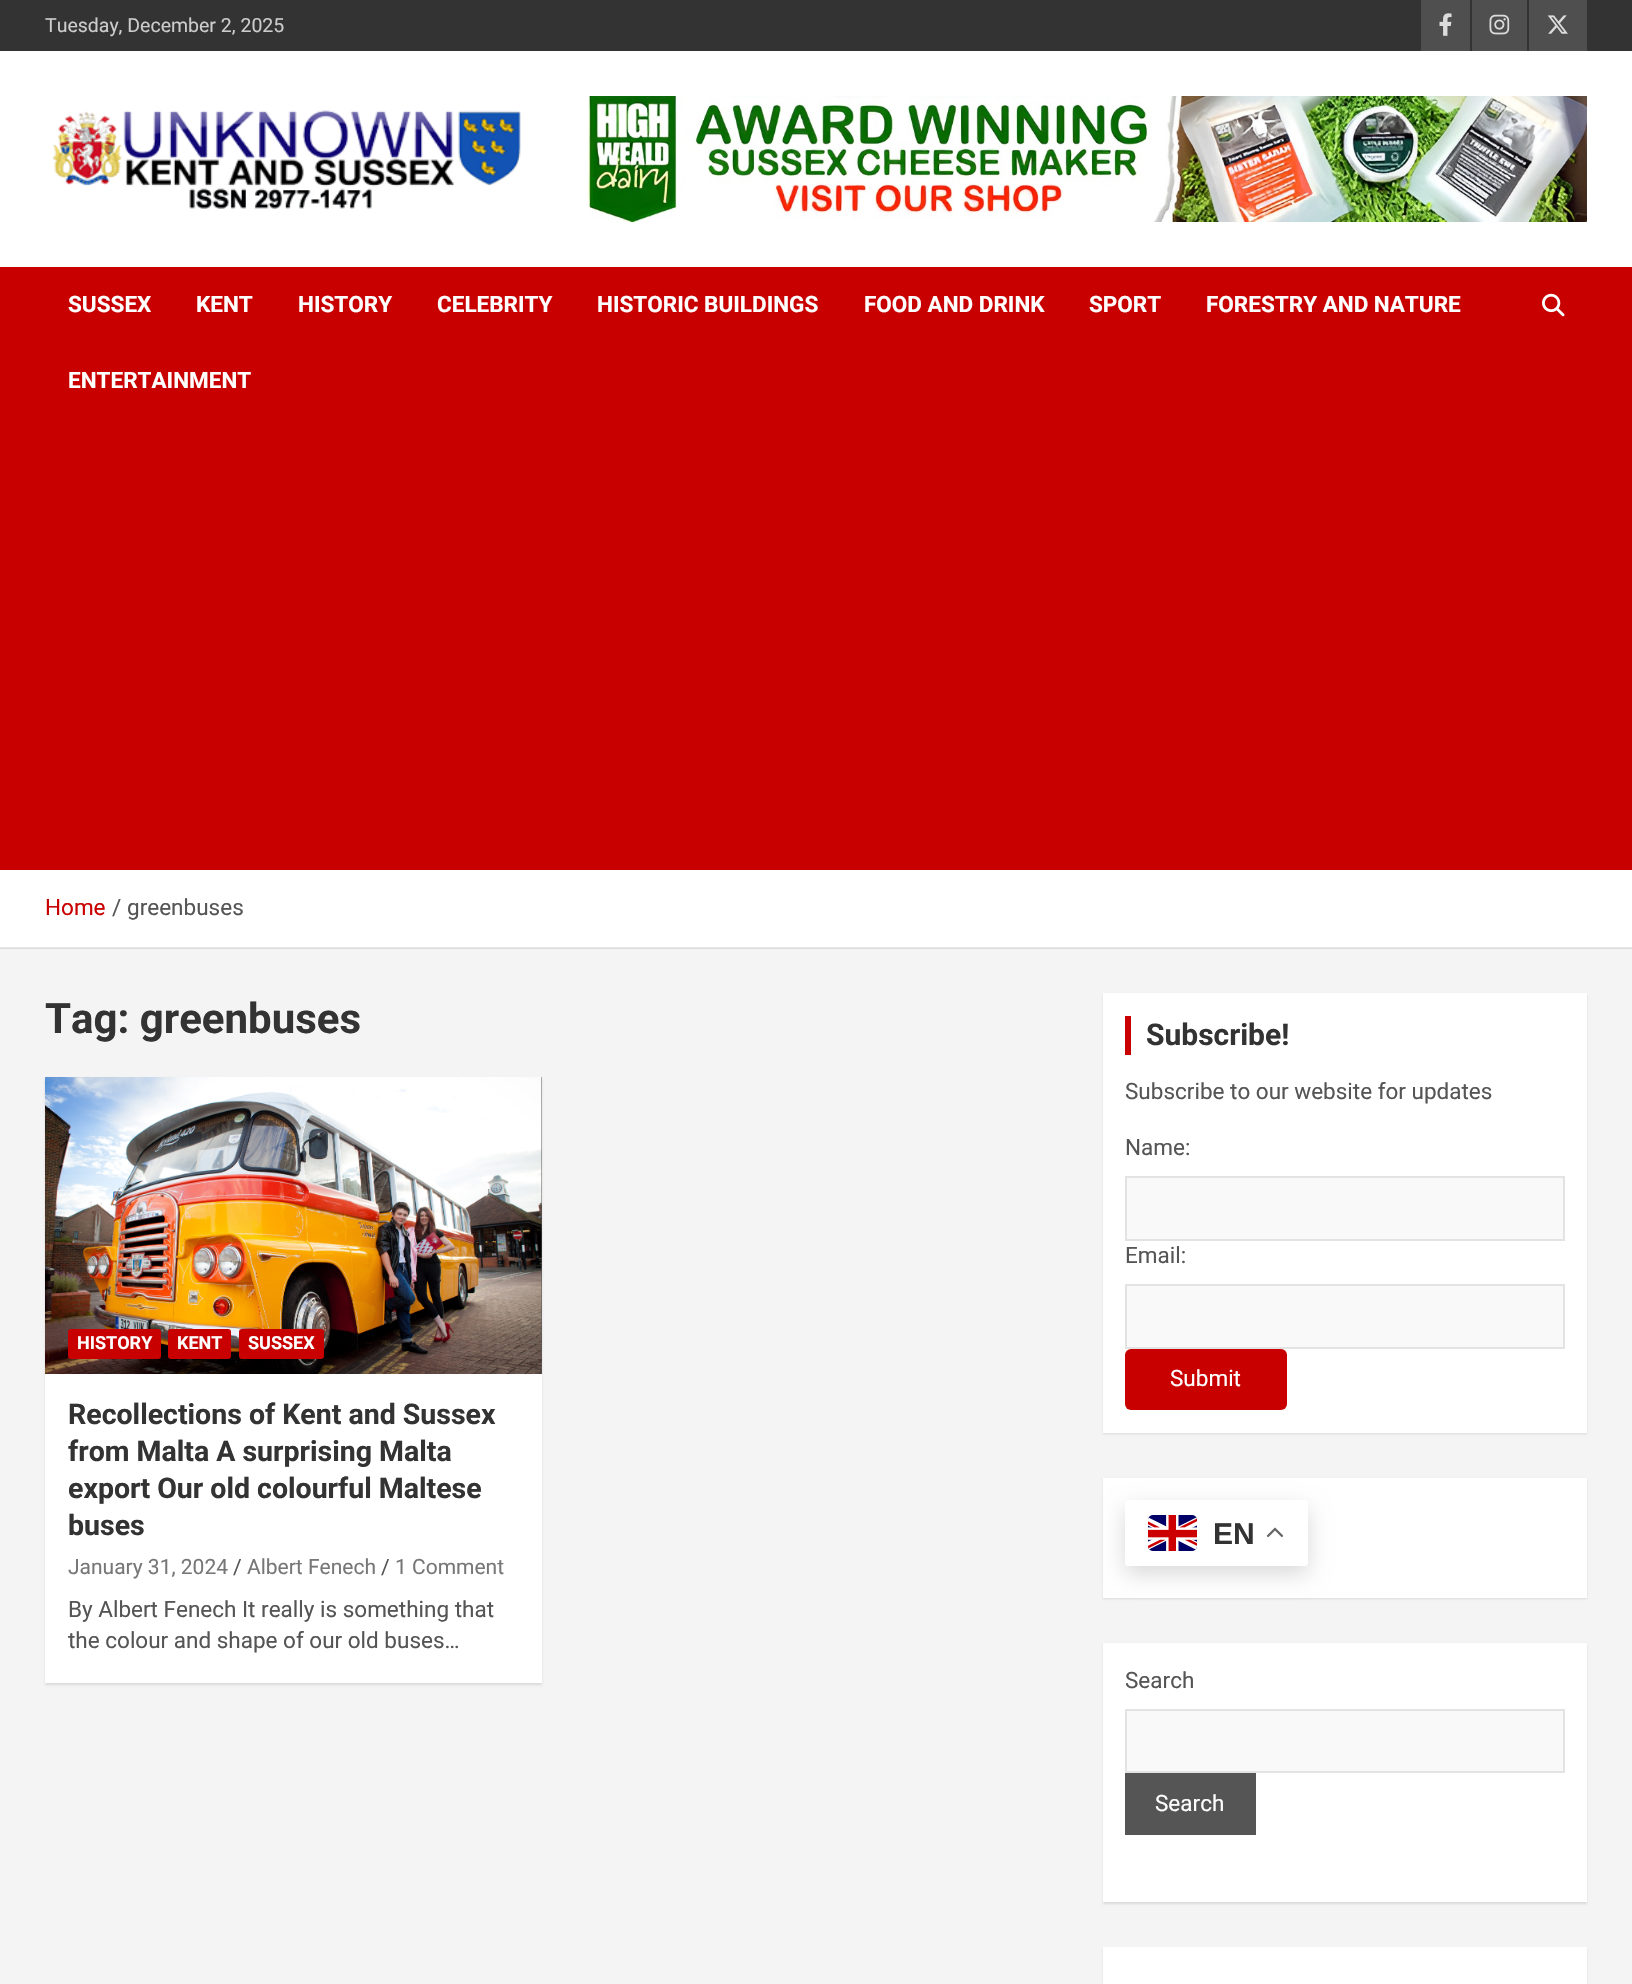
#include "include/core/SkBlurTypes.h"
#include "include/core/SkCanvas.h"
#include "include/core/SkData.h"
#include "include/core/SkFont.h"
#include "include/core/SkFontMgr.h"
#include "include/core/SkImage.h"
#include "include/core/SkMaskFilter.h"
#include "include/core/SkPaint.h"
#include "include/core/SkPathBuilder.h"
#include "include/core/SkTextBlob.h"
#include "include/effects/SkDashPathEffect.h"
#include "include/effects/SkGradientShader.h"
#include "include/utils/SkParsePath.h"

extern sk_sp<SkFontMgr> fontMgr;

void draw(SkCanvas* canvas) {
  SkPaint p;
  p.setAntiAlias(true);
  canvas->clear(SkColorSetRGB(244, 244, 244));
  p.setColor(SkColorSetRGB(220, 220, 220));
  canvas->drawRect(SkRect::MakeLTRB(0, 948, 1632, 949), p);
  p.setColor(SkColorSetRGB(51, 51, 51));
  canvas->drawRect(SkRect::MakeLTRB(0, 0, 1632, 51), p);
  p.setColor(SkColorSetRGB(79, 79, 79));
  canvas->drawRect(SkRect::MakeLTRB(1421, 0, 1470, 51), p);
  canvas->drawImageRect(SkImages::DeferredFromEncodedData(SkData::MakeFromFileName("images/1.png")), SkRect::MakeLTRB(1439, 13, 1452, 36), SkSamplingOptions());
  canvas->drawRect(SkRect::MakeLTRB(1472, 0, 1527, 51), p);
  canvas->drawImageRect(SkImages::DeferredFromEncodedData(SkData::MakeFromFileName("images/2.png")), SkRect::MakeLTRB(1489, 14, 1510, 35), SkSamplingOptions());
  canvas->drawRect(SkRect::MakeLTRB(1529, 0, 1587, 51), p);
  canvas->drawImageRect(SkImages::DeferredFromEncodedData(SkData::MakeFromFileName("images/3.png")), SkRect::MakeLTRB(1547, 15, 1568, 34), SkSamplingOptions());
  p.setColor(SK_ColorWHITE);
  canvas->drawRect(SkRect::MakeLTRB(0, 51, 1632, 267), p);
  canvas->drawImageRect(SkImages::DeferredFromEncodedData(SkData::MakeFromFileName("images/4.png")), SkRect::MakeLTRB(52, 110, 521, 209), SkSamplingOptions());
  canvas->drawImageRect(SkImages::DeferredFromEncodedData(SkData::MakeFromFileName("images/5.png")), SkRect::MakeLTRB(587, 96, 1587, 222), SkSamplingOptions());
  p.setColor(SkColorSetRGB(200, 0, 0));
  canvas->drawRect(SkRect::MakeLTRB(0, 267, 1632, 870), p);
  canvas->drawImageRect(SkImages::DeferredFromEncodedData(SkData::MakeFromFileName("images/6.png")), SkRect::MakeLTRB(1542, 293, 1565, 317), SkSamplingOptions());
  p.setColor(SK_ColorWHITE);
  canvas->drawRect(SkRect::MakeLTRB(0, 870, 1632, 947), p);
  p.setColor(SkColorSetRGB(230, 230, 230));
  canvas->drawRect(SkRect::MakeLTRB(0, 947, 1632, 948), p);
  p.setColor(SkColorSetARGB(26, 0, 0, 0));
  p.setMaskFilter(SkMaskFilter::MakeBlur(kNormal_SkBlurStyle, 1));
  canvas->drawRect(SkRect::MakeLTRB(45, 1079, 542, 1685), p);
  p.setMaskFilter(nullptr);
  p.setColor(SK_ColorWHITE);
  canvas->drawRect(SkRect::MakeLTRB(45, 1374, 542, 1683), p);
  p.setColor(SkColorSetRGB(85, 85, 85));
  canvas->drawRect(SkRect::MakeLTRB(541, 1077, 542, 1374), p);
  canvas->drawImageRect(SkImages::DeferredFromEncodedData(SkData::MakeFromFileName("images/7.png")), SkRect::MakeLTRB(45, 1077, 542, 1374), SkSamplingOptions());
  p.setColor(SkColorSetRGB(200, 0, 0));
  canvas->drawRoundRect(SkRect::MakeLTRB(68, 1329, 161, 1359), 3, 3, p);
  canvas->drawRoundRect(SkRect::MakeLTRB(168, 1329, 231, 1359), 3, 3, p);
  canvas->drawRoundRect(SkRect::MakeLTRB(239, 1329, 324, 1359), 3, 3, p);
  p.setColor(SkColorSetARGB(26, 0, 0, 0));
  p.setMaskFilter(SkMaskFilter::MakeBlur(kNormal_SkBlurStyle, 1));
  canvas->drawRect(SkRect::MakeLTRB(1103, 995, 1587, 1434), p);
  p.setMaskFilter(nullptr);
  p.setColor(SK_ColorWHITE);
  canvas->drawRect(SkRect::MakeLTRB(1103, 993, 1587, 1433), p);
  p.setColor(SkColorSetRGB(200, 0, 0));
  canvas->drawRect(SkRect::MakeLTRB(1125, 1016, 1131, 1055), p);
  p.setColor(SkColorSetRGB(249, 249, 249));
  canvas->drawRect(SkRect::MakeLTRB(1126, 1177, 1564, 1240), p);
  p.setStyle(SkPaint::kStroke_Style);
  p.setStrokeWidth(2);
  p.setColor(SkColorSetRGB(227, 227, 227));
  canvas->drawRect(SkRect::MakeLTRB(1126, 1177, 1564, 1240), p);
  p.setStyle(SkPaint::kFill_Style);
  p.setColor(SkColorSetRGB(249, 249, 249));
  canvas->drawRect(SkRect::MakeLTRB(1126, 1285, 1564, 1348), p);
  p.setStyle(SkPaint::kStroke_Style);
  p.setColor(SkColorSetRGB(227, 227, 227));
  canvas->drawRect(SkRect::MakeLTRB(1126, 1285, 1564, 1348), p);
  p.setStyle(SkPaint::kFill_Style);
  p.setColor(SkColorSetRGB(200, 0, 0));
  canvas->drawRoundRect(SkRect::MakeLTRB(1125, 1349, 1287, 1410), 6, 6, p);
  p.setColor(SkColorSetARGB(26, 0, 0, 0));
  p.setMaskFilter(SkMaskFilter::MakeBlur(kNormal_SkBlurStyle, 1));
  canvas->drawRect(SkRect::MakeLTRB(1103, 1479, 1587, 1599), p);
  p.setMaskFilter(nullptr);
  p.setColor(SK_ColorWHITE);
  canvas->drawRect(SkRect::MakeLTRB(1103, 1478, 1587, 1598), p);
  p.setColor(SkColorSetARGB(38, 0, 0, 0));
  p.setMaskFilter(SkMaskFilter::MakeBlur(kNormal_SkBlurStyle, 11));
  canvas->drawRoundRect(SkRect::MakeLTRB(1125, 1508, 1308, 1574), 3, 3, p);
  p.setMaskFilter(nullptr);
  p.setColor(SK_ColorWHITE);
  canvas->drawRoundRect(SkRect::MakeLTRB(1125, 1500, 1308, 1566), 3, 3, p);
  canvas->drawImageRect(SkImages::DeferredFromEncodedData(SkData::MakeFromFileName("images/8.png")), SkRect::MakeLTRB(1148, 1515, 1197, 1551), SkSamplingOptions());
  canvas->drawImageRect(SkImages::DeferredFromEncodedData(SkData::MakeFromFileName("images/9.png")), SkRect::MakeLTRB(1266, 1527, 1283, 1538), SkSamplingOptions());
  p.setColor(SkColorSetARGB(26, 0, 0, 0));
  p.setMaskFilter(SkMaskFilter::MakeBlur(kNormal_SkBlurStyle, 1));
  canvas->drawRect(SkRect::MakeLTRB(1103, 1644, 1587, 1904), p);
  p.setMaskFilter(nullptr);
  p.setColor(SK_ColorWHITE);
  canvas->drawRect(SkRect::MakeLTRB(1103, 1643, 1587, 1902), p);
  p.setColor(SkColorSetRGB(249, 249, 249));
  canvas->drawRect(SkRect::MakeLTRB(1126, 1710, 1564, 1772), p);
  p.setStyle(SkPaint::kStroke_Style);
  p.setColor(SkColorSetRGB(227, 227, 227));
  canvas->drawRect(SkRect::MakeLTRB(1126, 1710, 1564, 1772), p);
  p.setStyle(SkPaint::kFill_Style);
  p.setColor(SkColorSetRGB(85, 85, 85));
  canvas->drawRect(SkRect::MakeLTRB(1125, 1773, 1256, 1835), p);
  p.setColor(SkColorSetARGB(26, 0, 0, 0));
  p.setMaskFilter(SkMaskFilter::MakeBlur(kNormal_SkBlurStyle, 1));
  canvas->drawRect(SkRect::MakeLTRB(1103, 1949, 1587, 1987), p);
  p.setMaskFilter(nullptr);
  p.setColor(SK_ColorWHITE);
  canvas->drawRect(SkRect::MakeLTRB(1103, 1947, 1587, 1984), p);
  SkFont font1(fontMgr->matchFamilyStyle("Roboto", SkFontStyle::Normal()), 19.5f);
  font1.setSubpixel(true);
  p.setColor(SkColorSetRGB(204, 204, 204));
  canvas->drawString("Tuesday, December 2, 2025", 45, 32, font1, p);
  SkFont font2(fontMgr->matchFamilyStyle("Roboto", SkFontStyle::Bold()), 22.5f);
  font2.setSubpixel(true);
  p.setColor(SK_ColorWHITE);
  canvas->drawString("SUSSEX", 68, 312, font2, p);
  canvas->drawString("KENT", 196, 312, font2, p);
  canvas->drawString("HISTORY", 298, 312, font2, p);
  canvas->drawString("CELEBRITY", 437, 312, font2, p);
  canvas->drawString("HISTORIC BUILDINGS", 597, 312, font2, p);
  canvas->drawString("FOOD AND DRINK", 864, 312, font2, p);
  canvas->drawString("SPORT", 1089, 312, font2, p);
  canvas->drawString("FORESTRY AND NATURE", 1206, 312, font2, p);
  canvas->drawString("ENTERTAINMENT", 68, 388, font2, p);
  SkFont font3(fontMgr->matchFamilyStyle("Roboto", SkFontStyle::Normal()), 22.5f);
  font3.setSubpixel(true);
  p.setColor(SkColorSetRGB(200, 0, 0));
  canvas->drawString("Home", 45, 915, font3, p);
  p.setColor(SkColorSetRGB(85, 85, 85));
  canvas->drawString("/", 112, 915, font3, p);
  canvas->drawString("greenbuses", 127, 915, font3, p);
  SkFont font4(fontMgr->matchFamilyStyle("Roboto", SkFontStyle::Bold()), 42);
  font4.setSubpixel(true);
  p.setColor(SkColorSetRGB(51, 51, 51));
  canvas->drawString("Tag: greenbuses", 45, 1033, font4, p);
  SkFont font5(fontMgr->matchFamilyStyle("Roboto", SkFontStyle::Bold()), 18);
  font5.setSubpixel(true);
  p.setColor(SK_ColorWHITE);
  canvas->drawString("HISTORY", 77, 1349, font5, p);
  canvas->drawString("KENT", 177, 1349, font5, p);
  canvas->drawString("SUSSEX", 248, 1349, font5, p);
  SkFont font6(fontMgr->matchFamilyStyle("Roboto", SkFontStyle::Bold()), 28.5f);
  font6.setSubpixel(true);
  p.setColor(SkColorSetRGB(51, 51, 51));
  canvas->drawString("Recollections of Kent and Sussex", 68, 1424, font6, p);
  canvas->drawString("from Malta A surprising Malta", 68, 1461, font6, p);
  canvas->drawString("export Our old colourful Maltese", 68, 1498, font6, p);
  canvas->drawString("buses", 68, 1535, font6, p);
  SkFont font7(fontMgr->matchFamilyStyle("Roboto", SkFontStyle::Normal()), 21);
  font7.setSubpixel(true);
  p.setColor(SkColorSetRGB(119, 119, 119));
  canvas->drawString("January 31, 2024", 68, 1574, font7, p);
  p.setColor(SkColorSetRGB(85, 85, 85));
  canvas->drawString("/", 233, 1574, font7, p);
  p.setColor(SkColorSetRGB(119, 119, 119));
  canvas->drawString("Albert Fenech", 247, 1574, font7, p);
  p.setColor(SkColorSetRGB(85, 85, 85));
  canvas->drawString("/", 381, 1574, font7, p);
  p.setColor(SkColorSetRGB(119, 119, 119));
  canvas->drawString("1 Comment", 395, 1574, font7, p);
  p.setColor(SkColorSetRGB(85, 85, 85));
  canvas->drawString("By Albert Fenech It really is something that", 68, 1617, font3, p);
  canvas->drawString("the colour and shape of our old buses…", 68, 1648, font3, p);
  SkFont font8(fontMgr->matchFamilyStyle("Roboto", SkFontStyle::Bold()), 30);
  font8.setSubpixel(true);
  p.setColor(SkColorSetRGB(51, 51, 51));
  canvas->drawString("Subscribe!", 1146, 1045, font8, p);
  p.setColor(SkColorSetRGB(85, 85, 85));
  canvas->drawString("Subscribe to our website for updates", 1125, 1099, font3, p);
  canvas->drawString("Name:", 1125, 1155, font3, p);
  canvas->drawString("Email:", 1125, 1263, font3, p);
  p.setColor(SK_ColorWHITE);
  canvas->drawString("Submit", 1170, 1386, font3, p);
  SkFont font9(fontMgr->matchFamilyStyle("Liberation Sans", SkFontStyle::Bold()), 30);
  font9.setSubpixel(true);
  p.setColor(SkColorSetRGB(51, 51, 51));
  canvas->drawString("EN", 1213, 1544, font9, p);
  p.setColor(SkColorSetRGB(85, 85, 85));
  canvas->drawString("Search", 1125, 1688, font3, p);
  p.setColor(SK_ColorWHITE);
  canvas->drawString("Search", 1155, 1811, font3, p);
}
